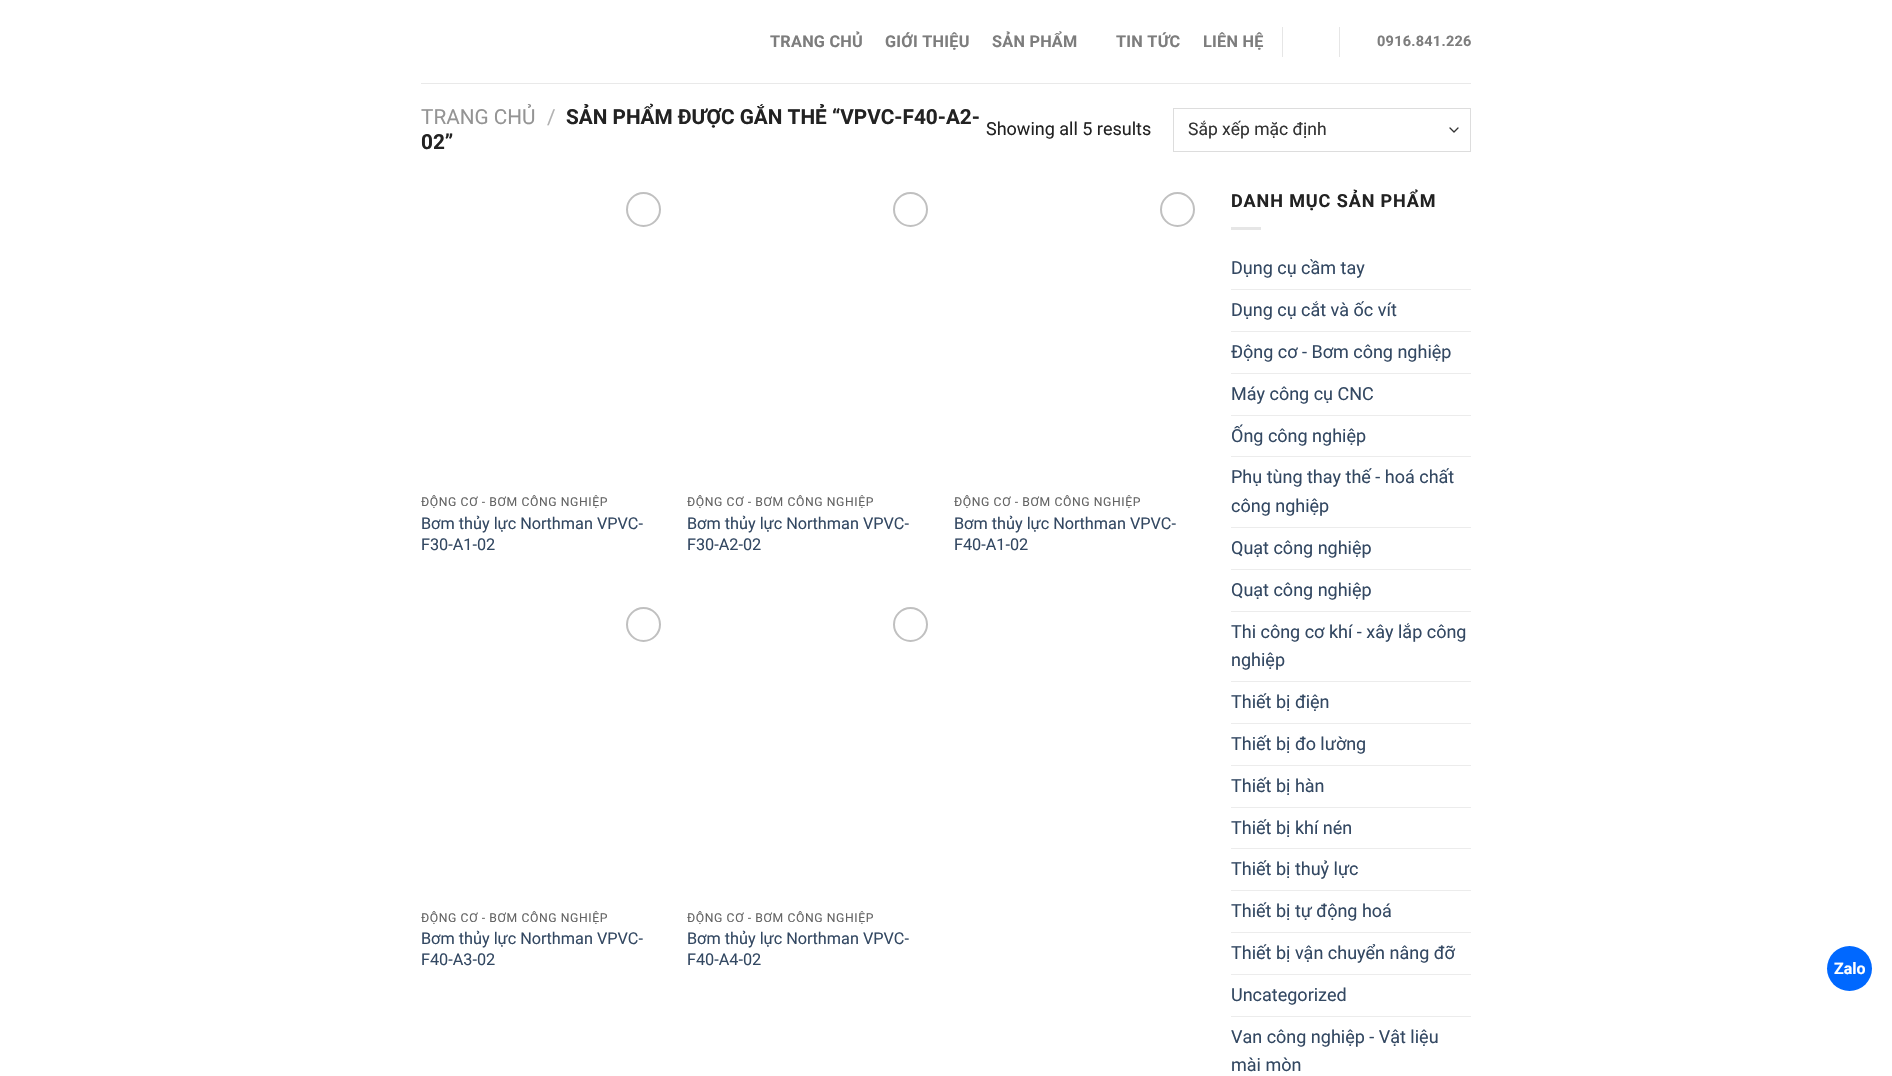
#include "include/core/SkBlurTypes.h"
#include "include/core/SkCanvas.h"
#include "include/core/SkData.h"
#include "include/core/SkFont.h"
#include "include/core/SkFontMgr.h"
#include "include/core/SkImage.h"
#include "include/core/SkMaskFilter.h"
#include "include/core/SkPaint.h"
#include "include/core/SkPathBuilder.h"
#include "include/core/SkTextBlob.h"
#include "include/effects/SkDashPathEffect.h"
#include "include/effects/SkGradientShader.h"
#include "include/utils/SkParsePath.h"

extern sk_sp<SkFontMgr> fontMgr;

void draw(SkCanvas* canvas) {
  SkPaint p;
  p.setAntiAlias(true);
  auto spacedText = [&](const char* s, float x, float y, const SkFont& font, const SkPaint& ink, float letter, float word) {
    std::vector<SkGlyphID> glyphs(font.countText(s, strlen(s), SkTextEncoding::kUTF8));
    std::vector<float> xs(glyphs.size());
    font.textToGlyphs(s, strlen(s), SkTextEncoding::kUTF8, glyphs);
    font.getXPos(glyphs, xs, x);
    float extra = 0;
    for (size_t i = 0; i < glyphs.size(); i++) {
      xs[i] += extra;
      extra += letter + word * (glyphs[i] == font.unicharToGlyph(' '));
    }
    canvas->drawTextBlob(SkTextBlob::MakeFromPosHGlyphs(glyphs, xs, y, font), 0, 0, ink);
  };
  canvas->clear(SK_ColorWHITE);
  p.setColor(SkColorSetRGB(230, 230, 230));
  canvas->drawRect(SkRect::MakeLTRB(1282, 27, 1283, 57), p);
  canvas->drawRect(SkRect::MakeLTRB(1339, 27, 1340, 57), p);
  p.setColor(SkColorSetRGB(233, 233, 233));
  canvas->drawRect(SkRect::MakeLTRB(421, 83, 1471, 84), p);
  p.setStyle(SkPaint::kStroke_Style);
  p.setStrokeWidth(1.3f);
  p.setStrokeCap(SkPaint::kRound_Cap);
  p.setStrokeJoin(SkPaint::kRound_Join);
  p.setColor(SkColorSetRGB(51, 51, 51));
  canvas->drawPath(SkPathBuilder().moveTo(1450, 128).lineTo(1454, 132).lineTo(1458, 128).detach(), p);
  p.setStrokeWidth(1);
  p.setStrokeCap(SkPaint::kButt_Cap);
  p.setStrokeJoin(SkPaint::kMiter_Join);
  p.setColor(SkColorSetRGB(221, 221, 221));
  canvas->drawRect(SkRect::MakeLTRB(1173.5f, 108.5f, 1470.5f, 151.5f), p);
  p.setStrokeWidth(2);
  p.setColor(SkColorSetRGB(192, 192, 192));
  canvas->drawCircle(643.5f, 209.5f, 16.5f, p);
  canvas->drawCircle(910.5f, 209.5f, 16.5f, p);
  canvas->drawCircle(1177.5f, 209.5f, 16.5f, p);
  canvas->drawCircle(643.5f, 624.5f, 16.5f, p);
  canvas->drawCircle(910.5f, 624.5f, 16.5f, p);
  p.setStyle(SkPaint::kFill_Style);
  p.setColor(SkColorSetRGB(230, 230, 230));
  canvas->drawRect(SkRect::MakeLTRB(1231, 227, 1261, 230), p);
  p.setColor(SkColorSetRGB(236, 236, 236));
  canvas->drawRect(SkRect::MakeLTRB(1231, 289, 1471, 290), p);
  canvas->drawRect(SkRect::MakeLTRB(1231, 331, 1471, 332), p);
  canvas->drawRect(SkRect::MakeLTRB(1231, 373, 1471, 374), p);
  canvas->drawRect(SkRect::MakeLTRB(1231, 415, 1471, 416), p);
  canvas->drawRect(SkRect::MakeLTRB(1231, 456, 1471, 457), p);
  canvas->drawRect(SkRect::MakeLTRB(1231, 527, 1471, 528), p);
  canvas->drawRect(SkRect::MakeLTRB(1231, 569, 1471, 570), p);
  canvas->drawRect(SkRect::MakeLTRB(1231, 611, 1471, 612), p);
  canvas->drawRect(SkRect::MakeLTRB(1231, 681, 1471, 682), p);
  canvas->drawRect(SkRect::MakeLTRB(1231, 723, 1471, 724), p);
  canvas->drawRect(SkRect::MakeLTRB(1231, 765, 1471, 766), p);
  canvas->drawRect(SkRect::MakeLTRB(1231, 807, 1471, 808), p);
  canvas->drawRect(SkRect::MakeLTRB(1231, 848, 1471, 849), p);
  canvas->drawRect(SkRect::MakeLTRB(1231, 890, 1471, 891), p);
  canvas->drawRect(SkRect::MakeLTRB(1231, 932, 1471, 933), p);
  canvas->drawRect(SkRect::MakeLTRB(1231, 974, 1471, 975), p);
  canvas->drawRect(SkRect::MakeLTRB(1231, 1016, 1471, 1017), p);
  p.setColor(SkColorSetRGB(0, 104, 255));
  canvas->drawCircle(1849.5f, 968.5f, 22.5f, p);
  SkFont font1(fontMgr->matchFamilyStyle("Roboto", SkFontStyle::Bold()), 16.25f);
  font1.setSubpixel(true);
  p.setColor(SkColorSetRGB(125, 125, 125));
  spacedText("TRANG CHỦ", 770, 47, font1, p, 0.25f, 0);
  spacedText("GIỚI THIỆU", 885, 47, font1, p, 0.25f, 0);
  spacedText("SẢN PHẨM", 992, 47, font1, p, 0.25f, 0);
  spacedText("TIN TỨC", 1116, 47, font1, p, 0.25f, 0);
  spacedText("LIÊN HỆ", 1203, 47, font1, p, 0.25f, 0);
  SkFont font2(fontMgr->matchFamilyStyle("Roboto", SkFontStyle::Bold()), 14.5f);
  font2.setSubpixel(true);
  spacedText("0916.841.226", 1377, 46, font2, p, 0.25f, 0);
  SkFont font3(fontMgr->matchFamilyStyle("Roboto", SkFontStyle::Normal()), 20.75f);
  font3.setSubpixel(true);
  p.setColor(SkColorSetRGB(148, 148, 148));
  canvas->drawString("TRANG CHỦ", 421, 124, font3, p);
  p.setColor(SkColorSetRGB(178, 178, 178));
  canvas->drawString("/", 547, 124, font3, p);
  SkFont font4(fontMgr->matchFamilyStyle("Roboto", SkFontStyle::Bold()), 20.75f);
  font4.setSubpixel(true);
  p.setColor(SkColorSetRGB(34, 34, 34));
  canvas->drawString("SẢN PHẨM ĐƯỢC GẮN THẺ “VPVC-F40-A2-", 566, 124, font4, p);
  canvas->drawString("02”", 421, 149, font4, p);
  SkFont font5(fontMgr->matchFamilyStyle("Roboto", SkFontStyle::Normal()), 18);
  font5.setSubpixel(true);
  canvas->drawString("Showing all 5 results", 986, 135, font5, p);
  SkFont font6(fontMgr->matchFamilyStyle("Roboto", SkFontStyle::Normal()), 17.5f);
  font6.setSubpixel(true);
  p.setColor(SkColorSetRGB(51, 51, 51));
  canvas->drawString("Sắp xếp mặc định", 1188, 135, font6, p);
  SkFont font7(fontMgr->matchFamilyStyle("Roboto", SkFontStyle::Normal()), 12.2f);
  font7.setSubpixel(true);
  p.setColor(SkColorSetRGB(100, 100, 100));
  spacedText("ĐỘNG CƠ - BƠM CÔNG NGHIỆP", 421, 506, font7, p, 0.6f, 0);
  SkFont font8(fontMgr->matchFamilyStyle("Roboto", SkFontStyle::Normal()), 16.25f);
  font8.setSubpixel(true);
  p.setColor(SkColorSetRGB(51, 72, 98));
  canvas->drawString("Bơm thủy lực Northman VPVC-", 421, 529, font8, p);
  canvas->drawString("F30-A1-02", 421, 550, font8, p);
  p.setColor(SkColorSetRGB(100, 100, 100));
  spacedText("ĐỘNG CƠ - BƠM CÔNG NGHIỆP", 687, 506, font7, p, 0.6f, 0);
  p.setColor(SkColorSetRGB(51, 72, 98));
  canvas->drawString("Bơm thủy lực Northman VPVC-", 687, 529, font8, p);
  canvas->drawString("F30-A2-02", 687, 550, font8, p);
  p.setColor(SkColorSetRGB(100, 100, 100));
  spacedText("ĐỘNG CƠ - BƠM CÔNG NGHIỆP", 954, 506, font7, p, 0.6f, 0);
  p.setColor(SkColorSetRGB(51, 72, 98));
  canvas->drawString("Bơm thủy lực Northman VPVC-", 954, 529, font8, p);
  canvas->drawString("F40-A1-02", 954, 550, font8, p);
  p.setColor(SkColorSetRGB(100, 100, 100));
  spacedText("ĐỘNG CƠ - BƠM CÔNG NGHIỆP", 421, 922, font7, p, 0.6f, 0);
  p.setColor(SkColorSetRGB(51, 72, 98));
  canvas->drawString("Bơm thủy lực Northman VPVC-", 421, 944, font8, p);
  canvas->drawString("F40-A3-02", 421, 965, font8, p);
  p.setColor(SkColorSetRGB(100, 100, 100));
  spacedText("ĐỘNG CƠ - BƠM CÔNG NGHIỆP", 687, 922, font7, p, 0.6f, 0);
  p.setColor(SkColorSetRGB(51, 72, 98));
  canvas->drawString("Bơm thủy lực Northman VPVC-", 687, 944, font8, p);
  canvas->drawString("F40-A4-02", 687, 965, font8, p);
  SkFont font9(fontMgr->matchFamilyStyle("Roboto", SkFontStyle::Bold()), 18);
  font9.setSubpixel(true);
  p.setColor(SkColorSetRGB(34, 34, 34));
  spacedText("DANH MỤC SẢN PHẨM", 1231, 207, font9, p, 0.9f, 0);
  p.setColor(SkColorSetRGB(51, 72, 98));
  canvas->drawString("Dụng cụ cầm tay", 1231, 274, font5, p);
  canvas->drawString("Dụng cụ cắt và ốc vít", 1231, 316, font5, p);
  canvas->drawString("Động cơ - Bơm công nghiệp", 1231, 358, font5, p);
  canvas->drawString("Máy công cụ CNC", 1231, 400, font5, p);
  canvas->drawString("Ống công nghiệp", 1231, 442, font5, p);
  canvas->drawString("Phụ tùng thay thế - hoá chất", 1231, 483, font5, p);
  canvas->drawString("công nghiệp", 1231, 512, font5, p);
  canvas->drawString("Quạt công nghiệp", 1231, 554, font5, p);
  canvas->drawString("Quạt công nghiệp", 1231, 596, font5, p);
  canvas->drawString("Thi công cơ khí - xây lắp công", 1231, 638, font5, p);
  canvas->drawString("nghiệp", 1231, 666, font5, p);
  canvas->drawString("Thiết bị điện", 1231, 708, font5, p);
  canvas->drawString("Thiết bị đo lường", 1231, 750, font5, p);
  canvas->drawString("Thiết bị hàn", 1231, 792, font5, p);
  canvas->drawString("Thiết bị khí nén", 1231, 834, font5, p);
  canvas->drawString("Thiết bị thuỷ lực", 1231, 875, font5, p);
  canvas->drawString("Thiết bị tự động hoá", 1231, 917, font5, p);
  canvas->drawString("Thiết bị vận chuyển nâng đỡ", 1231, 959, font5, p);
  canvas->drawString("Uncategorized", 1231, 1001, font5, p);
  canvas->drawString("Van công nghiệp - Vật liệu", 1231, 1043, font5, p);
  canvas->drawString("mài mòn", 1231, 1071, font5, p);
  SkFont font10(fontMgr->matchFamilyStyle("Roboto", SkFontStyle::Bold()), 16);
  font10.setSubpixel(true);
  p.setColor(SK_ColorWHITE);
  canvas->drawString("Zalo", 1834, 974, font10, p);
}
